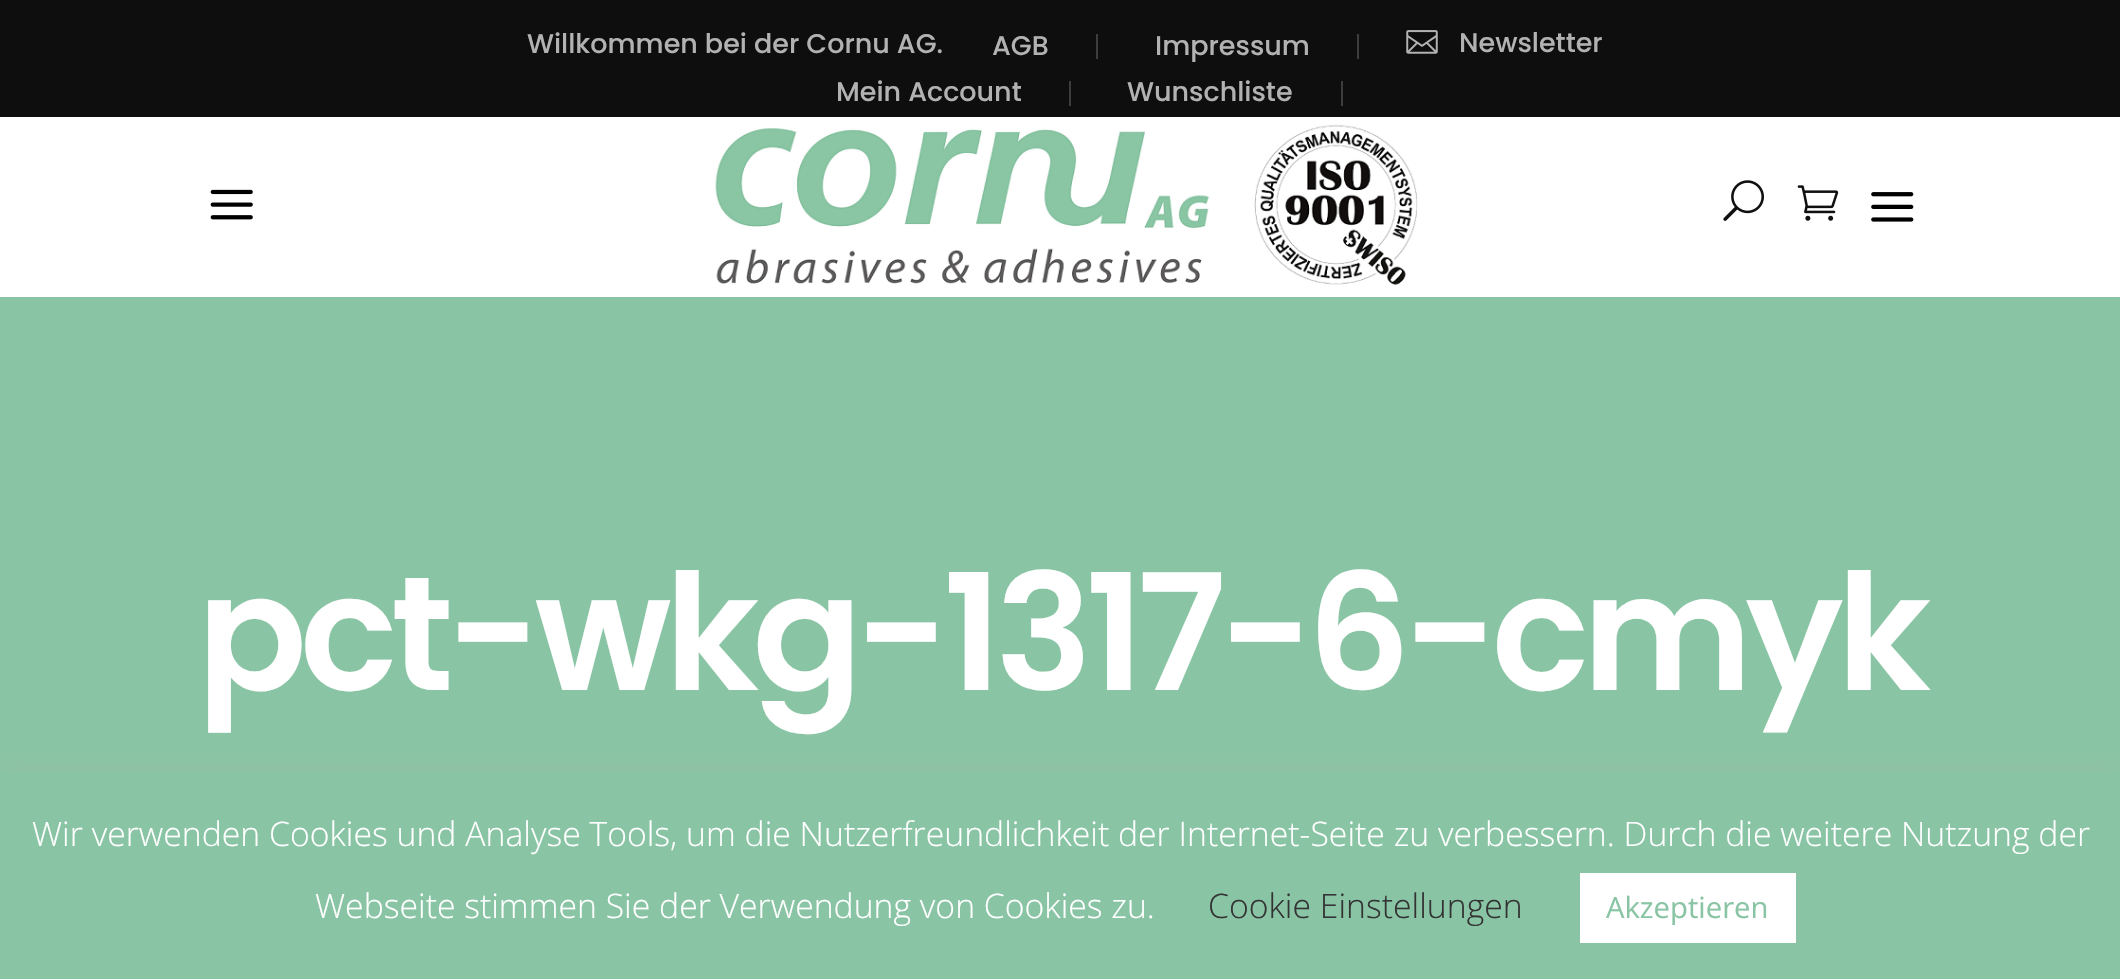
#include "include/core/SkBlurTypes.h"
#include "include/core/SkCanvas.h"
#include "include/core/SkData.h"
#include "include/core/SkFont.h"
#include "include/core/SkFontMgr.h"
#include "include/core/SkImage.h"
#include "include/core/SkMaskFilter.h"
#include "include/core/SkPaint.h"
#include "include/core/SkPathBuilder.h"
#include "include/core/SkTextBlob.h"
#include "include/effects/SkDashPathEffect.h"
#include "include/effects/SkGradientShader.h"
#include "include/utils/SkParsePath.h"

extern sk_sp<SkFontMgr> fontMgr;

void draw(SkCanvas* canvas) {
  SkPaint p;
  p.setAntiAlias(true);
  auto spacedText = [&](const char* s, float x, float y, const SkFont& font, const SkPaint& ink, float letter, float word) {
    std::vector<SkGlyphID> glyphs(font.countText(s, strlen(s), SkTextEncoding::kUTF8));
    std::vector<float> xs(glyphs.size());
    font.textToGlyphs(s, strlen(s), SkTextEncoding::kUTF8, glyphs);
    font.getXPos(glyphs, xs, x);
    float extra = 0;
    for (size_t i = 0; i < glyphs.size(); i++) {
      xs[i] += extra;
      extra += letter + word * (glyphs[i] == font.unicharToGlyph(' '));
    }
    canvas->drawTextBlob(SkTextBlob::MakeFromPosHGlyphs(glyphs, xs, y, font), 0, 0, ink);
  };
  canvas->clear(SK_ColorWHITE);
  p.setColor(SkColorSetRGB(14, 14, 14));
  canvas->drawRect(SkRect::MakeLTRB(0, 0, 2120, 117), p);
  p.setColor(SkColorSetRGB(61, 61, 61));
  canvas->drawRect(SkRect::MakeLTRB(1096, 34, 1098, 59), p);
  canvas->drawRect(SkRect::MakeLTRB(1357, 34, 1359, 59), p);
  canvas->drawImageRect(SkImages::DeferredFromEncodedData(SkData::MakeFromFileName("images/1.png")), SkRect::MakeLTRB(1406, 30, 1438, 54), SkSamplingOptions());
  canvas->drawRect(SkRect::MakeLTRB(1069, 81, 1071, 106), p);
  canvas->drawRect(SkRect::MakeLTRB(1341, 81, 1343, 106), p);
  canvas->drawImageRect(SkImages::DeferredFromEncodedData(SkData::MakeFromFileName("images/2.png")), SkRect::MakeLTRB(210, 189, 253, 220), SkSamplingOptions());
  canvas->drawImageRect(SkImages::DeferredFromEncodedData(SkData::MakeFromFileName("images/3.png")), SkRect::MakeLTRB(715, 124, 1418, 285), SkSamplingOptions());
  canvas->drawImageRect(SkImages::DeferredFromEncodedData(SkData::MakeFromFileName("images/4.png")), SkRect::MakeLTRB(1723, 180, 1764, 221), SkSamplingOptions());
  canvas->drawImageRect(SkImages::DeferredFromEncodedData(SkData::MakeFromFileName("images/5.png")), SkRect::MakeLTRB(1797, 185, 1839, 221), SkSamplingOptions());
  canvas->drawImageRect(SkImages::DeferredFromEncodedData(SkData::MakeFromFileName("images/6.png")), SkRect::MakeLTRB(1871, 192, 1914, 222), SkSamplingOptions());
  p.setColor(SkColorSetRGB(137, 197, 164));
  canvas->drawRect(SkRect::MakeLTRB(0, 297, 2120, 772), p);
  p.setColor(SkColorSetARGB(77, 172, 171, 171));
  p.setMaskFilter(SkMaskFilter::MakeBlur(kNormal_SkBlurStyle, 11));
  canvas->drawRect(SkRect::MakeLTRB(0, 770, 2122, 979), p);
  p.setMaskFilter(nullptr);
  p.setColor(SkColorSetRGB(137, 197, 164));
  canvas->drawRect(SkRect::MakeLTRB(0, 772, 2120, 979), p);
  p.setColor(SK_ColorWHITE);
  canvas->drawRect(SkRect::MakeLTRB(1580, 873, 1796, 943), p);
  SkFont font1(fontMgr->matchFamilyStyle("Poppins", SkFontStyle(500, SkFontStyle::kNormal_Width, SkFontStyle::kUpright_Slant)), 27);
  font1.setSubpixel(true);
  p.setColor(SkColorSetRGB(178, 178, 178));
  canvas->drawString("Willkommen bei der Cornu AG.", 527, 53, font1, p);
  canvas->drawString("AGB", 992, 55, font1, p);
  canvas->drawString("Impressum", 1155, 55, font1, p);
  canvas->drawString("Newsletter", 1459, 52, font1, p);
  canvas->drawString("Mein Account", 836, 101, font1, p);
  canvas->drawString("Wunschliste", 1127, 101, font1, p);
  SkFont font2(fontMgr->matchFamilyStyle("Poppins", SkFontStyle(600, SkFontStyle::kNormal_Width, SkFontStyle::kUpright_Slant)), 162);
  font2.setSubpixel(true);
  p.setColor(SK_ColorWHITE);
  spacedText("pct-wkg-1317-6-cmyk", 197, 690, font2, p, -6.75f, 0);
  SkFont font3(fontMgr->matchFamilyStyle("Open Sans", SkFontStyle(300, SkFontStyle::kNormal_Width, SkFontStyle::kUpright_Slant)), 33.75f);
  font3.setSubpixel(true);
  canvas->drawString("Wir verwenden Cookies und Analyse Tools, um die Nutzerfreundlichkeit der Internet-Seite zu verbessern. Durch die weitere Nutzung der", 32, 846, font3, p);
  canvas->drawString("Webseite stimmen Sie der Verwendung von Cookies zu.", 315, 918, font3, p);
  p.setColor(SkColorSetRGB(51, 51, 51));
  canvas->drawString("Cookie Einstellungen", 1208, 918, font3, p);
  SkFont font4(fontMgr->matchFamilyStyle("Open Sans", SkFontStyle::Normal()), 29.25f);
  font4.setSubpixel(true);
  p.setColor(SkColorSetRGB(137, 197, 164));
  canvas->drawString("Akzeptieren", 1606, 918, font4, p);
}
